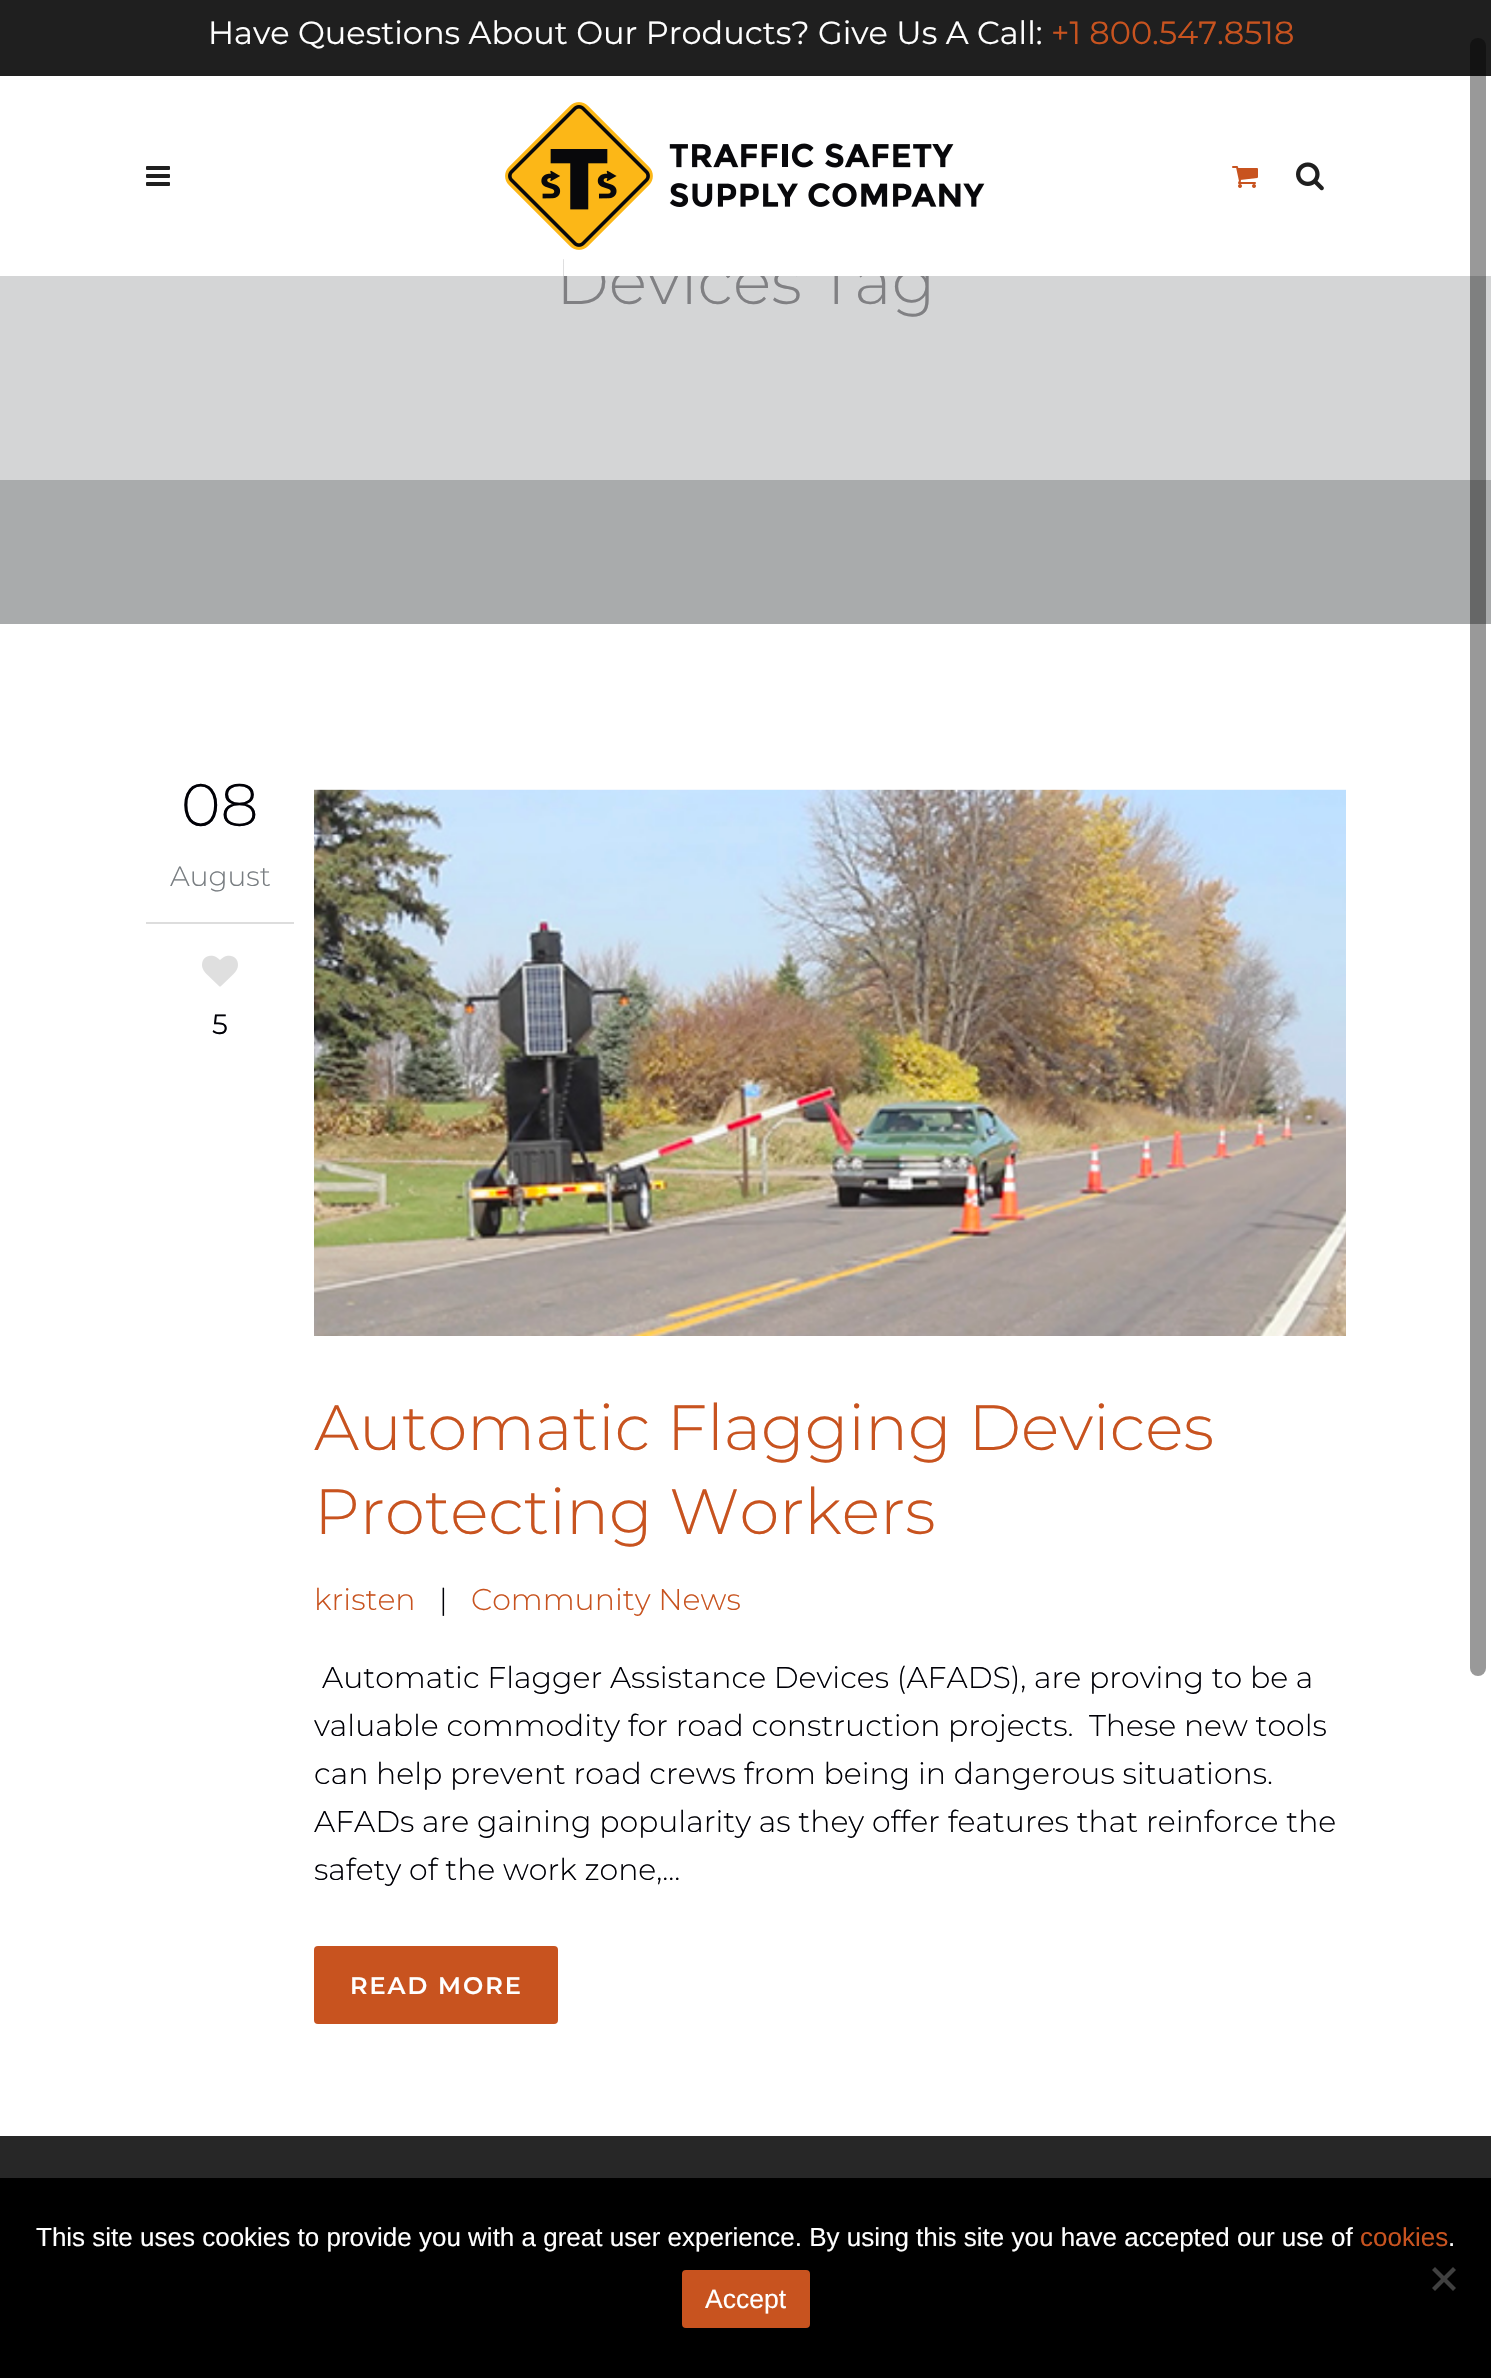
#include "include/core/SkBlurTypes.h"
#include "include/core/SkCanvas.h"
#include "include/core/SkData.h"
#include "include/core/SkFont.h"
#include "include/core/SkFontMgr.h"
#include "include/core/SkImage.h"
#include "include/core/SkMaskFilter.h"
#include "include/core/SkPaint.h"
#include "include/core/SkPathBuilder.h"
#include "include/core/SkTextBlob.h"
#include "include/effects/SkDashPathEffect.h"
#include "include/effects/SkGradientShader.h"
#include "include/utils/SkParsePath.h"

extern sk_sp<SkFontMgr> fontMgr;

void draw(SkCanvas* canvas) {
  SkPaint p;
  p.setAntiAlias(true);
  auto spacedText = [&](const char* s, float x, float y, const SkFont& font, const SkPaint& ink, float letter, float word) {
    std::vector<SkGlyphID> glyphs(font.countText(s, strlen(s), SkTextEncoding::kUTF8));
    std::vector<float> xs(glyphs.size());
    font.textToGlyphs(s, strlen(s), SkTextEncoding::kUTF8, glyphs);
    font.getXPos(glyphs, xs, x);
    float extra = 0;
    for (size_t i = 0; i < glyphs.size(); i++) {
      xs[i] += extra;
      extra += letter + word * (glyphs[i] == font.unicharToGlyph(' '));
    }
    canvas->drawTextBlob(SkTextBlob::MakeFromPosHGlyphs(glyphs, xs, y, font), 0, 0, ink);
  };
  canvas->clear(SK_ColorWHITE);
  p.setColor(SkColorSetRGB(31, 31, 31));
  canvas->drawRect(SkRect::MakeLTRB(0, 0, 1491, 76), p);
  canvas->drawImageRect(SkImages::DeferredFromEncodedData(SkData::MakeFromFileName("images/1.png")), SkRect::MakeLTRB(146, 166, 170, 186), SkSamplingOptions());
  canvas->drawImageRect(SkImages::DeferredFromEncodedData(SkData::MakeFromFileName("images/2.png")), SkRect::MakeLTRB(505, 102, 985, 250), SkSamplingOptions());
  canvas->drawImageRect(SkImages::DeferredFromEncodedData(SkData::MakeFromFileName("images/3.png")), SkRect::MakeLTRB(1232, 166, 1258, 188), SkSamplingOptions());
  canvas->drawImageRect(SkImages::DeferredFromEncodedData(SkData::MakeFromFileName("images/4.png")), SkRect::MakeLTRB(1296, 162, 1324, 191), SkSamplingOptions());
  p.setColor(SkColorSetRGB(169, 171, 172));
  canvas->drawRect(SkRect::MakeLTRB(0, 480, 1491, 624), p);
  p.setColor(SkColorSetRGB(212, 213, 214));
  canvas->drawRect(SkRect::MakeLTRB(0, 276, 1491, 480), p);
  p.setColor(SkColorSetRGB(221, 221, 221));
  canvas->drawRect(SkRect::MakeLTRB(146, 922, 294, 924), p);
  canvas->drawImageRect(SkImages::DeferredFromEncodedData(SkData::MakeFromFileName("images/5.png")), SkRect::MakeLTRB(202, 955, 238, 987), SkSamplingOptions());
  canvas->drawImageRect(SkImages::DeferredFromEncodedData(SkData::MakeFromFileName("images/6.png")), SkRect::MakeLTRB(314, 789, 1346, 1336), SkSamplingOptions());
  p.setColor(SkColorSetRGB(200, 83, 31));
  canvas->drawRoundRect(SkRect::MakeLTRB(314, 1946, 558, 2024), 4, 4, p);
  p.setColor(SkColorSetRGB(39, 39, 39));
  canvas->drawRect(SkRect::MakeLTRB(0, 2136, 1491, 2178), p);
  p.setColor(SkColorSetARGB(102, 0, 0, 0));
  canvas->drawRoundRect(SkRect::MakeLTRB(1470, 38, 1486, 1676), 8, 8, p);
  p.setColor(SK_ColorBLACK);
  canvas->drawRect(SkRect::MakeLTRB(0, 2178, 1491, 2378), p);
  p.setColor(SkColorSetRGB(64, 64, 64));
  canvas->drawPath(SkPathBuilder().moveTo(1453, 2267).lineTo(1456, 2270).lineTo(1435, 2291).lineTo(1432, 2288).close().detach(), p);
  canvas->drawPath(SkPathBuilder().moveTo(1432, 2270).lineTo(1435, 2267).lineTo(1456, 2288).lineTo(1453, 2291).close().detach(), p);
  p.setColor(SkColorSetRGB(200, 83, 31));
  canvas->drawRoundRect(SkRect::MakeLTRB(684, 2272, 808, 2326), 2, 2, p);
  p.setStyle(SkPaint::kStroke_Style);
  p.setStrokeWidth(4);
  canvas->drawRoundRect(SkRect::MakeLTRB(684, 2272, 808, 2326), 2, 2, p);
  SkFont font1(fontMgr->matchFamilyStyle("Montserrat", SkFontStyle::Normal()), 32);
  font1.setSubpixel(true);
  p.setStyle(SkPaint::kFill_Style);
  p.setColor(SK_ColorWHITE);
  canvas->drawString("Have Questions About Our Products? Give Us A Call:", 208, 44, font1, p);
  p.setColor(SkColorSetRGB(200, 83, 31));
  canvas->drawString("+1 800.547.8518", 1051, 44, font1, p);
  SkFont font2(fontMgr->matchFamilyStyle("Montserrat", SkFontStyle(300, SkFontStyle::kNormal_Width, SkFontStyle::kUpright_Slant)), 64);
  font2.setSubpixel(true);
  p.setColor(SkColorSetRGB(128, 128, 131));
  canvas->drawString("Devices Tag", 556, 304, font2, p);
  p.setColor(SK_ColorWHITE);
  canvas->drawRect(SkRect::MakeLTRB(564, 257, 929, 276), p);
  SkFont font3(fontMgr->matchFamilyStyle("Montserrat", SkFontStyle(300, SkFontStyle::kNormal_Width, SkFontStyle::kUpright_Slant)), 60);
  font3.setSubpixel(true);
  p.setColor(SkColorSetRGB(0, 0, 6));
  canvas->drawString("08", 181, 826, font3, p);
  SkFont font4(fontMgr->matchFamilyStyle("Montserrat", SkFontStyle(300, SkFontStyle::kNormal_Width, SkFontStyle::kUpright_Slant)), 28);
  font4.setSubpixel(true);
  p.setColor(SkColorSetRGB(120, 125, 129));
  canvas->drawString("August", 170, 886, font4, p);
  SkFont font5(fontMgr->matchFamilyStyle("Montserrat", SkFontStyle::Normal()), 28);
  font5.setSubpixel(true);
  p.setColor(SkColorSetRGB(0, 0, 6));
  canvas->drawString("5", 212, 1034, font5, p);
  p.setColor(SkColorSetRGB(200, 83, 31));
  canvas->drawString("Automatic Flagging Devices", 314, 1450, font2, p);
  canvas->drawString("Protecting Workers", 314, 1534, font2, p);
  SkFont font6(fontMgr->matchFamilyStyle("Montserrat", SkFontStyle(300, SkFontStyle::kNormal_Width, SkFontStyle::kUpright_Slant)), 30);
  font6.setSubpixel(true);
  canvas->drawString("kristen", 314, 1610, font6, p);
  p.setColor(SkColorSetRGB(0, 0, 6));
  canvas->drawString("|", 439, 1610, font6, p);
  p.setColor(SkColorSetRGB(200, 83, 31));
  canvas->drawString("Community News", 471, 1610, font6, p);
  p.setColor(SkColorSetRGB(0, 0, 6));
  canvas->drawString("Automatic Flagger Assistance Devices (AFADS), are proving to be a", 322, 1688, font6, p);
  canvas->drawString("valuable commodity for road construction projects.  These new tools", 314, 1736, font6, p);
  canvas->drawString("can help prevent road crews from being in dangerous situations.", 314, 1784, font6, p);
  canvas->drawString("AFADs are gaining popularity as they offer features that reinforce the", 314, 1832, font6, p);
  canvas->drawString("safety of the work zone,...", 314, 1880, font6, p);
  SkFont font7(fontMgr->matchFamilyStyle("Montserrat", SkFontStyle(600, SkFontStyle::kNormal_Width, SkFontStyle::kUpright_Slant)), 24);
  font7.setSubpixel(true);
  p.setColor(SK_ColorWHITE);
  spacedText("READ MORE", 350, 1994, font7, p, 2, 0);
  SkFont font8(fontMgr->matchFamilyStyle("Liberation Sans", SkFontStyle::Normal()), 26);
  font8.setSubpixel(true);
  canvas->drawString("This site uses cookies to provide you with a great user experience. By using this site you have accepted our use of", 36, 2246, font8, p);
  p.setColor(SkColorSetRGB(200, 83, 31));
  canvas->drawString("cookies", 1360, 2246, font8, p);
  p.setColor(SK_ColorWHITE);
  canvas->drawString(".", 1448, 2246, font8, p);
  SkFont font9(fontMgr->matchFamilyStyle("Liberation Sans", SkFontStyle::Normal()), 26.5f);
  font9.setSubpixel(true);
  canvas->drawString("Accept", 705, 2308, font9, p);
}
